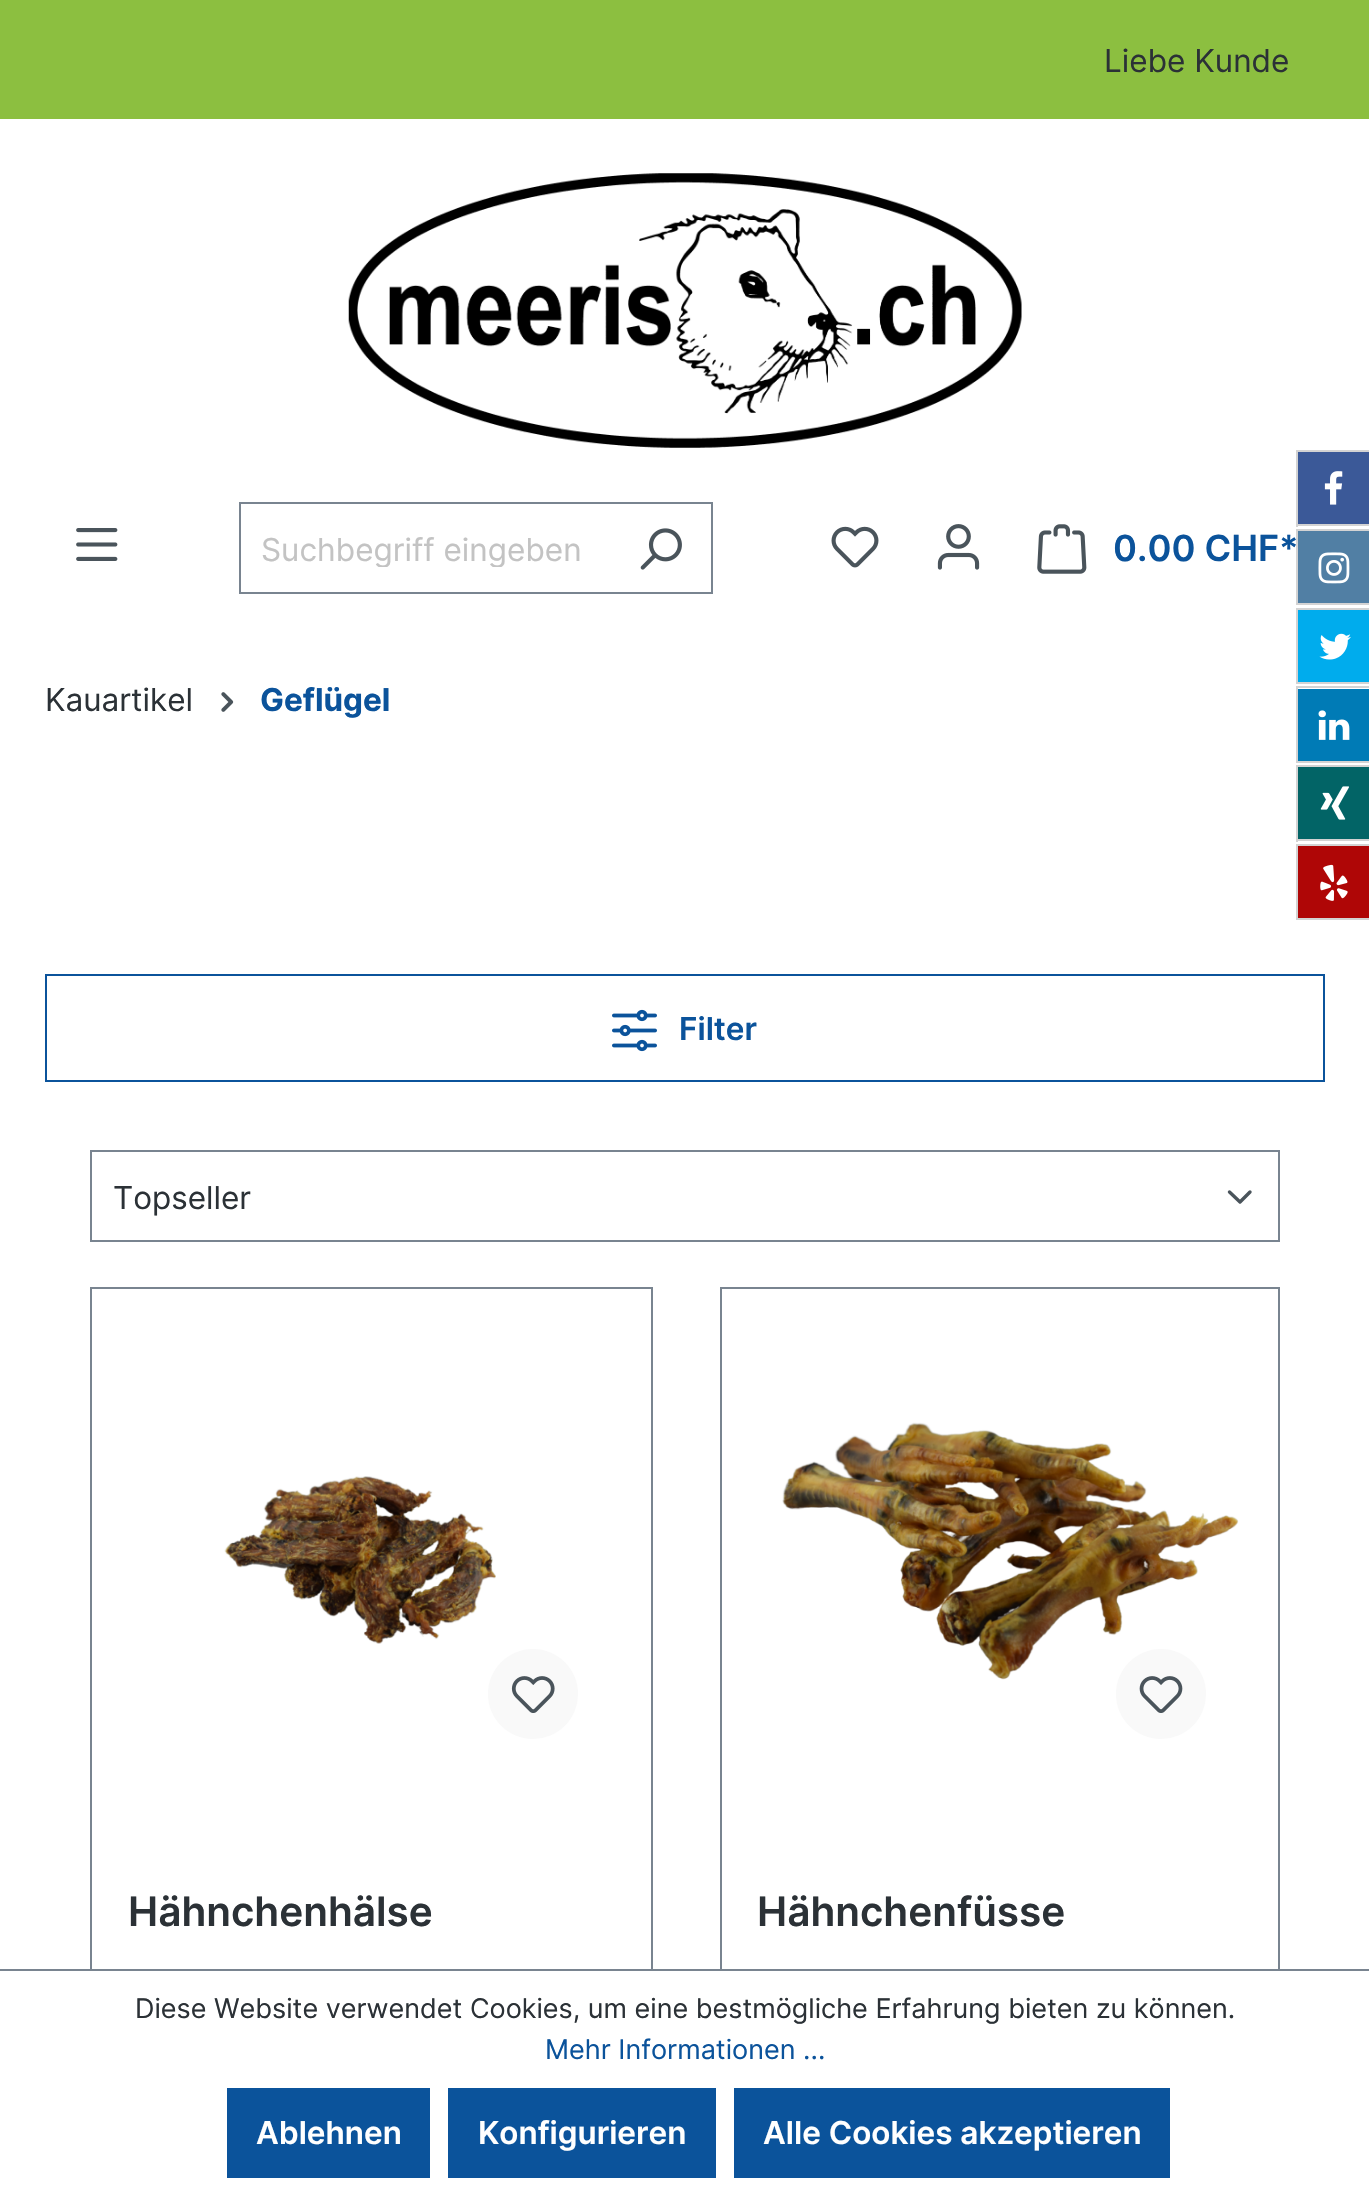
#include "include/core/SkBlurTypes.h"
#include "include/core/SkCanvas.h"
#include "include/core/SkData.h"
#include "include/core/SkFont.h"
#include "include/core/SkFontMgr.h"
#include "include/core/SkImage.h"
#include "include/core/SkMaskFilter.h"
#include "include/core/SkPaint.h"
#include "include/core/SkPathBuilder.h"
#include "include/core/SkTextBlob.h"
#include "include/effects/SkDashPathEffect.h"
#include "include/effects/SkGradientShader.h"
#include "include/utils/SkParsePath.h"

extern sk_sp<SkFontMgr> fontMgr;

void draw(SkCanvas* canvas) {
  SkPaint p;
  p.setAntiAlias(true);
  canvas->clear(SK_ColorWHITE);
  p.setColor(SkColorSetRGB(140, 191, 64));
  canvas->drawRect(SkRect::MakeLTRB(0, 0, 1369, 119), p);
  canvas->drawImageRect(SkImages::DeferredFromEncodedData(SkData::MakeFromFileName("images/1.png")), SkRect::MakeLTRB(348, 173, 1022, 448), SkSamplingOptions());
  canvas->drawImageRect(SkImages::DeferredFromEncodedData(SkData::MakeFromFileName("images/2.png")), SkRect::MakeLTRB(76, 528, 118, 561), SkSamplingOptions());
  p.setColor(SkColorSetRGB(121, 132, 144));
  canvas->drawRect(SkRect::MakeLTRB(239, 502, 713, 504), p);
  canvas->drawRect(SkRect::MakeLTRB(239, 592, 610, 594), p);
  canvas->drawRect(SkRect::MakeLTRB(239, 502, 241, 594), p);
  canvas->drawRect(SkRect::MakeLTRB(711, 502, 713, 594), p);
  canvas->drawRect(SkRect::MakeLTRB(608, 592, 713, 594), p);
  canvas->drawImageRect(SkImages::DeferredFromEncodedData(SkData::MakeFromFileName("images/3.png")), SkRect::MakeLTRB(640, 528, 682, 570), SkSamplingOptions());
  canvas->drawImageRect(SkImages::DeferredFromEncodedData(SkData::MakeFromFileName("images/4.png")), SkRect::MakeLTRB(831, 526, 879, 568), SkSamplingOptions());
  canvas->drawImageRect(SkImages::DeferredFromEncodedData(SkData::MakeFromFileName("images/5.png")), SkRect::MakeLTRB(937, 524, 980, 570), SkSamplingOptions());
  canvas->drawImageRect(SkImages::DeferredFromEncodedData(SkData::MakeFromFileName("images/6.png")), SkRect::MakeLTRB(1037, 524, 1087, 574), SkSamplingOptions());
  p.setColor(SkColorSetRGB(59, 89, 152));
  canvas->drawRect(SkRect::MakeLTRB(1298, 452, 1369, 524), p);
  p.setColor(SkColorSetRGB(211, 211, 211));
  canvas->drawRect(SkRect::MakeLTRB(1296, 450, 1369, 452), p);
  canvas->drawRect(SkRect::MakeLTRB(1296, 524, 1369, 526), p);
  canvas->drawRect(SkRect::MakeLTRB(1296, 450, 1298, 527), p);
  canvas->drawImageRect(SkImages::DeferredFromEncodedData(SkData::MakeFromFileName("images/7.png")), SkRect::MakeLTRB(1324, 471, 1343, 505), SkSamplingOptions());
  p.setColor(SkColorSetRGB(81, 127, 164));
  canvas->drawRect(SkRect::MakeLTRB(1298, 531, 1369, 603), p);
  p.setColor(SkColorSetRGB(211, 211, 211));
  canvas->drawRect(SkRect::MakeLTRB(1296, 529, 1369, 531), p);
  canvas->drawRect(SkRect::MakeLTRB(1296, 603, 1369, 605), p);
  canvas->drawRect(SkRect::MakeLTRB(1296, 529, 1298, 605), p);
  canvas->drawImageRect(SkImages::DeferredFromEncodedData(SkData::MakeFromFileName("images/8.png")), SkRect::MakeLTRB(1318, 552, 1350, 584), SkSamplingOptions());
  p.setColor(SkColorSetRGB(0, 172, 237));
  canvas->drawRect(SkRect::MakeLTRB(1298, 610, 1369, 682), p);
  p.setColor(SkColorSetRGB(211, 211, 211));
  canvas->drawRect(SkRect::MakeLTRB(1296, 608, 1369, 610), p);
  canvas->drawRect(SkRect::MakeLTRB(1296, 682, 1369, 684), p);
  canvas->drawRect(SkRect::MakeLTRB(1296, 608, 1298, 684), p);
  canvas->drawImageRect(SkImages::DeferredFromEncodedData(SkData::MakeFromFileName("images/9.png")), SkRect::MakeLTRB(1319, 633, 1351, 660), SkSamplingOptions());
  p.setColor(SkColorSetRGB(0, 123, 182));
  canvas->drawRect(SkRect::MakeLTRB(1298, 689, 1369, 761), p);
  p.setColor(SkColorSetRGB(211, 211, 211));
  canvas->drawRect(SkRect::MakeLTRB(1296, 686, 1369, 688), p);
  canvas->drawRect(SkRect::MakeLTRB(1296, 761, 1369, 763), p);
  canvas->drawRect(SkRect::MakeLTRB(1296, 686, 1298, 763), p);
  canvas->drawImageRect(SkImages::DeferredFromEncodedData(SkData::MakeFromFileName("images/10.png")), SkRect::MakeLTRB(1318, 710, 1350, 740), SkSamplingOptions());
  p.setColor(SkColorSetRGB(2, 100, 102));
  canvas->drawRect(SkRect::MakeLTRB(1298, 767, 1369, 839), p);
  p.setColor(SkColorSetRGB(211, 211, 211));
  canvas->drawRect(SkRect::MakeLTRB(1296, 765, 1369, 767), p);
  canvas->drawRect(SkRect::MakeLTRB(1296, 839, 1369, 841), p);
  canvas->drawRect(SkRect::MakeLTRB(1296, 765, 1298, 842), p);
  canvas->drawImageRect(SkImages::DeferredFromEncodedData(SkData::MakeFromFileName("images/11.png")), SkRect::MakeLTRB(1320, 786, 1349, 820), SkSamplingOptions());
  p.setColor(SkColorSetRGB(175, 6, 6));
  canvas->drawRect(SkRect::MakeLTRB(1298, 846, 1369, 918), p);
  p.setColor(SkColorSetRGB(211, 211, 211));
  canvas->drawRect(SkRect::MakeLTRB(1296, 844, 1369, 846), p);
  canvas->drawRect(SkRect::MakeLTRB(1296, 918, 1369, 920), p);
  canvas->drawRect(SkRect::MakeLTRB(1296, 844, 1298, 920), p);
  canvas->drawImageRect(SkImages::DeferredFromEncodedData(SkData::MakeFromFileName("images/12.png")), SkRect::MakeLTRB(1320, 864, 1348, 901), SkSamplingOptions());
  canvas->drawImageRect(SkImages::DeferredFromEncodedData(SkData::MakeFromFileName("images/13.png")), SkRect::MakeLTRB(221, 692, 234, 712), SkSamplingOptions());
  p.setStyle(SkPaint::kStroke_Style);
  p.setStrokeWidth(2);
  p.setColor(SkColorSetRGB(11, 83, 155));
  canvas->drawRect(SkRect::MakeLTRB(46, 975, 1324, 1081), p);
  canvas->drawImageRect(SkImages::DeferredFromEncodedData(SkData::MakeFromFileName("images/14.png")), SkRect::MakeLTRB(612, 1009, 657, 1052), SkSamplingOptions());
  p.setStrokeWidth(3.4f);
  p.setStrokeCap(SkPaint::kRound_Cap);
  p.setStrokeJoin(SkPaint::kRound_Join);
  p.setColor(SkColorSetRGB(74, 84, 91));
  canvas->drawPath(SkPathBuilder().moveTo(1229.5f, 1192).lineTo(1240, 1202).lineTo(1250, 1192).detach(), p);
  p.setStrokeWidth(2);
  p.setStrokeCap(SkPaint::kButt_Cap);
  p.setStrokeJoin(SkPaint::kMiter_Join);
  p.setColor(SkColorSetRGB(121, 132, 144));
  canvas->drawRect(SkRect::MakeLTRB(91, 1151, 1279, 1241), p);
  canvas->drawRect(SkRect::MakeLTRB(91, 1288, 652, 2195), p);
  canvas->drawImageRect(SkImages::DeferredFromEncodedData(SkData::MakeFromFileName("images/15.png")), SkRect::MakeLTRB(224, 1476, 496, 1644), SkSamplingOptions());
  p.setStyle(SkPaint::kFill_Style);
  p.setColor(SkColorSetRGB(249, 249, 249));
  canvas->drawCircle(533, 1694, 45, p);
  canvas->drawImageRect(SkImages::DeferredFromEncodedData(SkData::MakeFromFileName("images/16.png")), SkRect::MakeLTRB(511, 1676, 555, 1713), SkSamplingOptions());
  p.setStyle(SkPaint::kStroke_Style);
  p.setColor(SkColorSetRGB(121, 132, 144));
  canvas->drawRect(SkRect::MakeLTRB(721, 1288, 1279, 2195), p);
  canvas->drawImageRect(SkImages::DeferredFromEncodedData(SkData::MakeFromFileName("images/17.png")), SkRect::MakeLTRB(782, 1422, 1239, 1680), SkSamplingOptions());
  p.setStyle(SkPaint::kFill_Style);
  p.setColor(SkColorSetRGB(249, 249, 249));
  canvas->drawCircle(1161, 1694, 45, p);
  canvas->drawImageRect(SkImages::DeferredFromEncodedData(SkData::MakeFromFileName("images/18.png")), SkRect::MakeLTRB(1139, 1676, 1183, 1713), SkSamplingOptions());
  p.setColor(SK_ColorWHITE);
  canvas->drawRect(SkRect::MakeLTRB(90, 1971, 1280, 2194), p);
  p.setColor(SkColorSetRGB(121, 132, 144));
  canvas->drawRect(SkRect::MakeLTRB(0, 1969, 1369, 1971), p);
  p.setColor(SkColorSetRGB(11, 83, 155));
  canvas->drawRect(SkRect::MakeLTRB(227, 2088, 430, 2178), p);
  canvas->drawRect(SkRect::MakeLTRB(448, 2088, 716, 2178), p);
  canvas->drawRect(SkRect::MakeLTRB(734, 2088, 1170, 2178), p);
  SkFont font1(fontMgr->matchFamilyStyle("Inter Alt", SkFontStyle::Normal()), 31.5f);
  font1.setSubpixel(true);
  p.setColor(SkColorSetRGB(43, 49, 54));
  canvas->drawString("Liebe Kunde", 1104, 72, font1, p);
  canvas->save();
  canvas->clipRect(SkRect::MakeLTRB(261, 529, 590, 567));
  SkFont font2(fontMgr->matchFamilyStyle("Inter", SkFontStyle::Normal()), 31.5f);
  font2.setSubpixel(true);
  p.setColor(SkColorSetRGB(195, 195, 195));
  canvas->drawString("Suchbegriff eingeben", 261, 561, font2, p);
  canvas->restore();
  SkFont font3(fontMgr->matchFamilyStyle("Inter", SkFontStyle(600, SkFontStyle::kNormal_Width, SkFontStyle::kUpright_Slant)), 36);
  font3.setSubpixel(true);
  p.setColor(SkColorSetRGB(11, 83, 155));
  canvas->drawString("0.00 CHF*", 1113, 561, font3, p);
  p.setColor(SkColorSetRGB(43, 49, 54));
  canvas->drawString("Kauartikel", 45, 711, font2, p);
  SkFont font4(fontMgr->matchFamilyStyle("Inter", SkFontStyle::Bold()), 31.5f);
  font4.setSubpixel(true);
  p.setColor(SkColorSetRGB(11, 83, 155));
  canvas->drawString("Geflügel", 260, 711, font4, p);
  SkFont font5(fontMgr->matchFamilyStyle("Inter", SkFontStyle(600, SkFontStyle::kNormal_Width, SkFontStyle::kUpright_Slant)), 31.5f);
  font5.setSubpixel(true);
  canvas->drawString("Filter", 679, 1040, font5, p);
  p.setColor(SkColorSetRGB(43, 49, 54));
  canvas->drawString("Topseller", 113, 1209, font2, p);
  SkFont font6(fontMgr->matchFamilyStyle("Inter", SkFontStyle(600, SkFontStyle::kNormal_Width, SkFontStyle::kUpright_Slant)), 40.5f);
  font6.setSubpixel(true);
  canvas->drawString("Hähnchenhälse", 128, 1926, font6, p);
  canvas->drawString("Hähnchenfüsse", 757, 1926, font6, p);
  SkFont font7(fontMgr->matchFamilyStyle("Inter", SkFontStyle::Normal()), 27);
  font7.setSubpixel(true);
  canvas->drawString("Diese Website verwendet Cookies, um eine bestmögliche Erfahrung bieten zu können.", 135, 2018, font7, p);
  p.setColor(SkColorSetRGB(11, 83, 155));
  canvas->drawString("Mehr Informationen ...", 545, 2059, font7, p);
  p.setColor(SK_ColorWHITE);
  canvas->drawString("Ablehnen", 256, 2144, font5, p);
  canvas->drawString("Konfigurieren", 478, 2144, font5, p);
  canvas->drawString("Alle Cookies akzeptieren", 763, 2144, font5, p);
}
